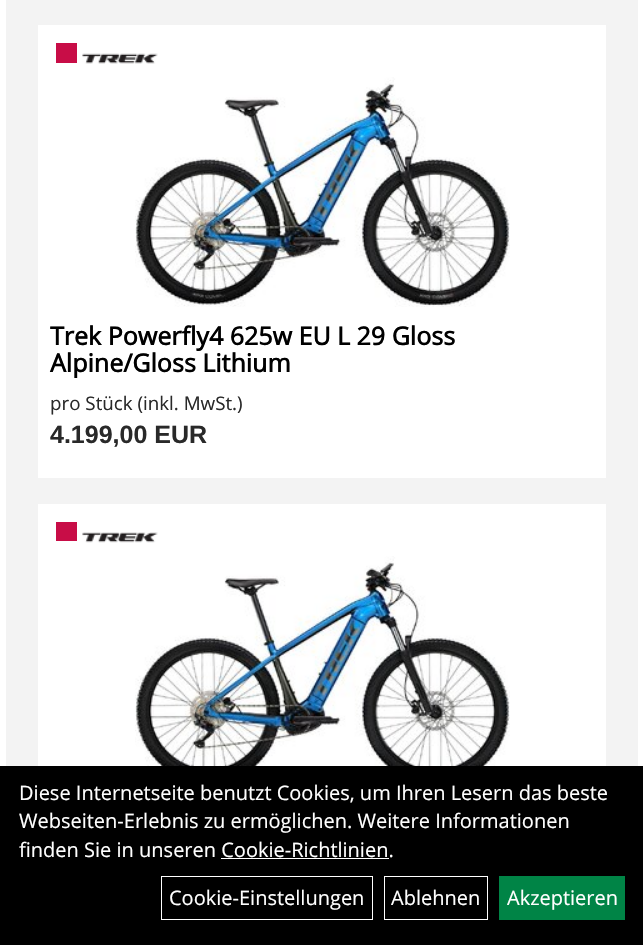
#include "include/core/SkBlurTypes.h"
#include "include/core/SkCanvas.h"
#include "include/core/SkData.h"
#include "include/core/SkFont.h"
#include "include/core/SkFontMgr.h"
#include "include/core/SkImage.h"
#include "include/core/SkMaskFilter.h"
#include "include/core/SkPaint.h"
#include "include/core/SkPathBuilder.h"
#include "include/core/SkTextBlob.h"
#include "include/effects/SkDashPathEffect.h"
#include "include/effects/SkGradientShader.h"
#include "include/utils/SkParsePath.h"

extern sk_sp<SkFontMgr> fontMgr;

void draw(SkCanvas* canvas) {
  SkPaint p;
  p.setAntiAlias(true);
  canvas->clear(SK_ColorWHITE);
  p.setColor(SkColorSetRGB(243, 243, 243));
  canvas->drawRect(SkRect::MakeLTRB(6, 0, 638, 766), p);
  p.setColor(SK_ColorWHITE);
  canvas->drawRect(SkRect::MakeLTRB(38, 25, 606, 478), p);
  p.setColor(SkColorSetRGB(200, 13, 71));
  canvas->drawRect(SkRect::MakeLTRB(56, 43, 77, 63), p);
  canvas->drawImageRect(SkImages::DeferredFromEncodedData(SkData::MakeFromFileName("images/1.png")), SkRect::MakeLTRB(82, 53, 158, 64), SkSamplingOptions());
  canvas->drawImageRect(SkImages::DeferredFromEncodedData(SkData::MakeFromFileName("images/2.png")), SkRect::MakeLTRB(135, 77, 510, 307), SkSamplingOptions());
  p.setColor(SK_ColorWHITE);
  canvas->drawRect(SkRect::MakeLTRB(38, 504, 606, 766), p);
  p.setColor(SkColorSetRGB(200, 13, 71));
  canvas->drawRect(SkRect::MakeLTRB(56, 522, 77, 541), p);
  canvas->drawImageRect(SkImages::DeferredFromEncodedData(SkData::MakeFromFileName("images/3.png")), SkRect::MakeLTRB(82, 532, 158, 543), SkSamplingOptions());
  canvas->drawImageRect(SkImages::DeferredFromEncodedData(SkData::MakeFromFileName("images/4.png")), SkRect::MakeLTRB(135, 556, 510, 766), SkSamplingOptions());
  p.setColor(SK_ColorBLACK);
  canvas->drawRect(SkRect::MakeLTRB(0, 766, 643, 945), p);
  p.setColor(SK_ColorWHITE);
  canvas->drawRect(SkRect::MakeLTRB(221, 858, 389, 859), p);
  p.setStyle(SkPaint::kStroke_Style);
  p.setStrokeWidth(1);
  canvas->drawRect(SkRect::MakeLTRB(161.5f, 876.5f, 372.5f, 919.5f), p);
  canvas->drawRect(SkRect::MakeLTRB(384.5f, 876.5f, 487.5f, 919.5f), p);
  p.setStyle(SkPaint::kFill_Style);
  p.setColor(SkColorSetRGB(0, 132, 70));
  canvas->drawRect(SkRect::MakeLTRB(499, 876, 625, 920), p);
  SkFont font1(fontMgr->matchFamilyStyle("Open Sans", SkFontStyle::Bold()), 25);
  font1.setSubpixel(true);
  p.setColor(SK_ColorBLACK);
  canvas->drawString("Trek Powerfly4 625w EU L 29 Gloss", 50, 345, font1, p);
  canvas->drawString("Alpine/Gloss Lithium", 50, 372, font1, p);
  SkFont font2(fontMgr->matchFamilyStyle("Open Sans", SkFontStyle::Normal()), 18.75f);
  font2.setSubpixel(true);
  p.setColor(SkColorSetRGB(41, 41, 41));
  canvas->drawString("pro Stück (inkl. MwSt.)", 50, 410, font2, p);
  SkFont font3(fontMgr->matchFamilyStyle("Liberation Sans", SkFontStyle::Bold()), 25);
  font3.setSubpixel(true);
  canvas->drawString("4.199,00 EUR", 50, 443, font3, p);
  SkFont font4(fontMgr->matchFamilyStyle("Open Sans", SkFontStyle::Normal()), 20);
  font4.setSubpixel(true);
  p.setColor(SK_ColorWHITE);
  canvas->drawString("Diese Internetseite benutzt Cookies, um Ihren Lesern das beste", 19, 800, font4, p);
  canvas->drawString("Webseiten-Erlebnis zu ermöglichen. Weitere Informationen", 19, 828, font4, p);
  canvas->drawString("finden Sie in unseren Cookie-Richtlinien.", 19, 857, font4, p);
  canvas->drawString("Cookie-Einstellungen", 169, 905, font4, p);
  canvas->drawString("Ablehnen", 391, 905, font4, p);
  canvas->drawString("Akzeptieren", 507, 905, font4, p);
}
